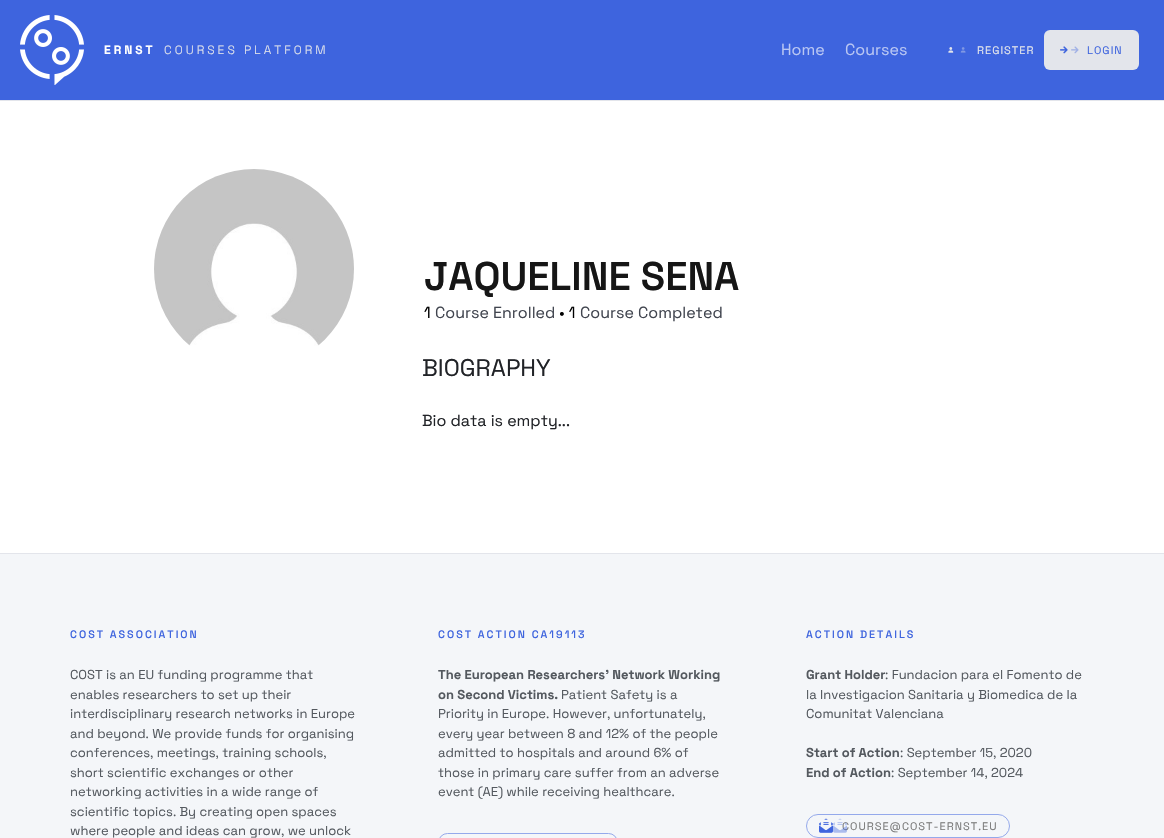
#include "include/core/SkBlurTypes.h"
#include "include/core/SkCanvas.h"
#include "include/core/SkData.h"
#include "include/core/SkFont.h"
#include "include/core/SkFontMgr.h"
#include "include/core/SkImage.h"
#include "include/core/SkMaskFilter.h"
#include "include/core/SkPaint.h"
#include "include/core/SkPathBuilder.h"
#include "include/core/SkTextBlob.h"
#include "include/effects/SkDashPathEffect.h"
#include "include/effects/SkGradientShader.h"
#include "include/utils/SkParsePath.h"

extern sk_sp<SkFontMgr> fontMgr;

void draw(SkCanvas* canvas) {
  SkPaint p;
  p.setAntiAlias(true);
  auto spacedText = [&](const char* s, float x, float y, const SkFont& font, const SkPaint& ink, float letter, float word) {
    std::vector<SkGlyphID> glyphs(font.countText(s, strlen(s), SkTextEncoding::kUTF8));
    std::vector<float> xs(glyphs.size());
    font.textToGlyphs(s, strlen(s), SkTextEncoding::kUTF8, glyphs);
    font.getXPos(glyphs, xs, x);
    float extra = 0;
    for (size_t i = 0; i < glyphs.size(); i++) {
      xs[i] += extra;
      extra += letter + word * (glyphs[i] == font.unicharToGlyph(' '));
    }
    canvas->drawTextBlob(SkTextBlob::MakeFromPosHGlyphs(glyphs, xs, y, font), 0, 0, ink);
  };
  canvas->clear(SK_ColorWHITE);
  p.setColor(SkColorSetRGB(62, 100, 222));
  canvas->drawRect(SkRect::MakeLTRB(0, 0, 1164, 100), p);
  p.setColor(SkColorSetRGB(227, 229, 235));
  canvas->drawRect(SkRect::MakeLTRB(0, 100, 1164, 101), p);
  canvas->drawImageRect(SkImages::DeferredFromEncodedData(SkData::MakeFromFileName("images/1.png")), SkRect::MakeLTRB(20, 15, 84, 85), SkSamplingOptions());
  canvas->drawImageRect(SkImages::DeferredFromEncodedData(SkData::MakeFromFileName("images/2.png")), SkRect::MakeLTRB(948, 47, 954, 53), SkSamplingOptions());
  canvas->drawImageRect(SkImages::DeferredFromEncodedData(SkData::MakeFromFileName("images/3.png")), SkRect::MakeLTRB(948, 47, 966, 53), SkSamplingOptions());
  canvas->drawRoundRect(SkRect::MakeLTRB(1044, 30, 1139, 70), 6, 6, p);
  canvas->drawImageRect(SkImages::DeferredFromEncodedData(SkData::MakeFromFileName("images/4.png")), SkRect::MakeLTRB(1060, 46, 1068, 54), SkSamplingOptions());
  canvas->drawImageRect(SkImages::DeferredFromEncodedData(SkData::MakeFromFileName("images/5.png")), SkRect::MakeLTRB(1060, 46, 1079, 54), SkSamplingOptions());
  canvas->drawImageRect(SkImages::DeferredFromEncodedData(SkData::MakeFromFileName("images/6.png")), SkRect::MakeLTRB(154, 169, 354, 346), SkSamplingOptions());
  p.setColor(SkColorSetRGB(244, 246, 249));
  canvas->drawRect(SkRect::MakeLTRB(0, 554, 1164, 838), p);
  p.setColor(SkColorSetRGB(227, 229, 235));
  canvas->drawRect(SkRect::MakeLTRB(0, 553, 1164, 554), p);
  p.setStyle(SkPaint::kStroke_Style);
  p.setStrokeWidth(1);
  p.setColor(SkColorSetRGB(148, 169, 235));
  canvas->drawRoundRect(SkRect::MakeLTRB(438.5f, 833.5f, 617.5f, 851.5f), 12, 12, p);
  canvas->drawRoundRect(SkRect::MakeLTRB(806.5f, 814.5f, 1009.5f, 837.5f), 11.5f, 11.5f, p);
  canvas->drawImageRect(SkImages::DeferredFromEncodedData(SkData::MakeFromFileName("images/7.png")), SkRect::MakeLTRB(819, 818, 833, 833), SkSamplingOptions());
  SkFont font1(fontMgr->matchFamilyStyle("Space Grotesk", SkFontStyle::Bold()), 12);
  font1.setSubpixel(true);
  p.setStyle(SkPaint::kFill_Style);
  p.setColor(SK_ColorWHITE);
  spacedText("ERNST", 104, 54, font1, p, 3, 0);
  SkFont font2(fontMgr->matchFamilyStyle("Space Grotesk", SkFontStyle(300, SkFontStyle::kNormal_Width, SkFontStyle::kUpright_Slant)), 12);
  font2.setSubpixel(true);
  p.setColor(SkColorSetRGB(227, 229, 235));
  spacedText("COURSES PLATFORM", 164, 54, font2, p, 3, 0);
  SkFont font3(fontMgr->matchFamilyStyle("Space Grotesk", SkFontStyle::Normal()), 16);
  font3.setSubpixel(true);
  p.setColor(SkColorSetRGB(186, 199, 243));
  canvas->drawString("Home", 781, 55, font3, p);
  canvas->drawString("Courses", 845, 55, font3, p);
  SkFont font4(fontMgr->matchFamilyStyle("Space Grotesk", SkFontStyle::Normal()), 11);
  font4.setSubpixel(true);
  p.setColor(SkColorSetRGB(227, 229, 235));
  spacedText("REGISTER", 977, 54, font4, p, 1, 0);
  p.setColor(SkColorSetRGB(62, 100, 222));
  spacedText("LOGIN", 1087, 54, font4, p, 1, 0);
  SkFont font5(fontMgr->matchFamilyStyle("Space Grotesk", SkFontStyle(600, SkFontStyle::kNormal_Width, SkFontStyle::kUpright_Slant)), 40);
  font5.setSubpixel(true);
  p.setColor(SkColorSetRGB(22, 22, 22));
  canvas->drawString("JAQUELINE SENA", 424, 290, font5, p);
  p.setColor(SK_ColorBLACK);
  canvas->drawString("1", 424, 318, font3, p);
  p.setColor(SkColorSetRGB(65, 69, 79));
  canvas->drawString("Course Enrolled", 435, 318, font3, p);
  p.setColor(SK_ColorBLACK);
  canvas->drawString("• 1", 559, 318, font3, p);
  p.setColor(SkColorSetRGB(65, 69, 79));
  canvas->drawString("Course Completed", 580, 318, font3, p);
  SkFont font6(fontMgr->matchFamilyStyle("Space Grotesk", SkFontStyle::Normal()), 24);
  font6.setSubpixel(true);
  p.setColor(SkColorSetRGB(33, 35, 39));
  canvas->drawString("BIOGRAPHY", 422, 376, font6, p);
  canvas->drawString("Bio data is empty...", 422, 426, font3, p);
  SkFont font7(fontMgr->matchFamilyStyle("Space Grotesk", SkFontStyle(500, SkFontStyle::kNormal_Width, SkFontStyle::kUpright_Slant)), 10.75f);
  font7.setSubpixel(true);
  p.setColor(SkColorSetRGB(62, 100, 222));
  spacedText("COST ASSOCIATION", 70, 638, font7, p, 2, 0);
  SkFont font8(fontMgr->matchFamilyStyle("Space Grotesk", SkFontStyle::Normal()), 13);
  font8.setSubpixel(true);
  p.setColor(SkColorSetRGB(84, 89, 95));
  canvas->drawString("COST is an EU funding programme that", 70, 679, font8, p);
  canvas->drawString("enables researchers to set up their", 70, 699, font8, p);
  canvas->drawString("interdisciplinary research networks in Europe", 70, 718, font8, p);
  canvas->drawString("and beyond. We provide funds for organising", 70, 738, font8, p);
  canvas->drawString("conferences, meetings, training schools,", 70, 757, font8, p);
  canvas->drawString("short scientific exchanges or other", 70, 777, font8, p);
  canvas->drawString("networking activities in a wide range of", 70, 796, font8, p);
  canvas->drawString("scientific topics. By creating open spaces", 70, 816, font8, p);
  canvas->drawString("where people and ideas can grow, we unlock", 70, 835, font8, p);
  p.setColor(SkColorSetRGB(62, 100, 222));
  spacedText("COST ACTION CA19113", 438, 638, font7, p, 2, 0);
  SkFont font9(fontMgr->matchFamilyStyle("Space Grotesk", SkFontStyle::Bold()), 13);
  font9.setSubpixel(true);
  p.setColor(SkColorSetRGB(84, 89, 95));
  canvas->drawString("The European Researchers’ Network Working", 438, 679, font9, p);
  canvas->drawString("on Second Victims.", 438, 699, font9, p);
  canvas->drawString("Patient Safety is a", 561, 699, font8, p);
  canvas->drawString("Priority in Europe. However, unfortunately,", 438, 718, font8, p);
  canvas->drawString("every year between 8 and 12% of the people", 438, 738, font8, p);
  canvas->drawString("admitted to hospitals and around 6% of", 438, 757, font8, p);
  canvas->drawString("those in primary care suffer from an adverse", 438, 777, font8, p);
  canvas->drawString("event (AE) while receiving healthcare.", 438, 796, font8, p);
  p.setColor(SkColorSetRGB(62, 100, 222));
  spacedText("ACTION DETAILS", 806, 638, font7, p, 2, 0);
  p.setColor(SkColorSetRGB(84, 89, 95));
  canvas->drawString("Grant Holder", 806, 679, font9, p);
  canvas->drawString(": Fundacion para el Fomento de", 885, 679, font8, p);
  canvas->drawString("la Investigacion Sanitaria y Biomedica de la", 806, 699, font8, p);
  canvas->drawString("Comunitat Valenciana", 806, 718, font8, p);
  canvas->drawString("Start of Action", 806, 757, font9, p);
  canvas->drawString(": September 15, 2020", 900, 757, font8, p);
  canvas->drawString("End of Action", 806, 777, font9, p);
  canvas->drawString(": September 14, 2024", 891, 777, font8, p);
  p.setColor(SkColorSetRGB(122, 122, 122));
  spacedText("COURSE@COST-ERNST.EU", 842, 830, font4, p, 1, 0);
  canvas->drawImageRect(SkImages::DeferredFromEncodedData(SkData::MakeFromFileName("images/8.png")), SkRect::MakeLTRB(819, 818, 847, 833), SkSamplingOptions());
}
